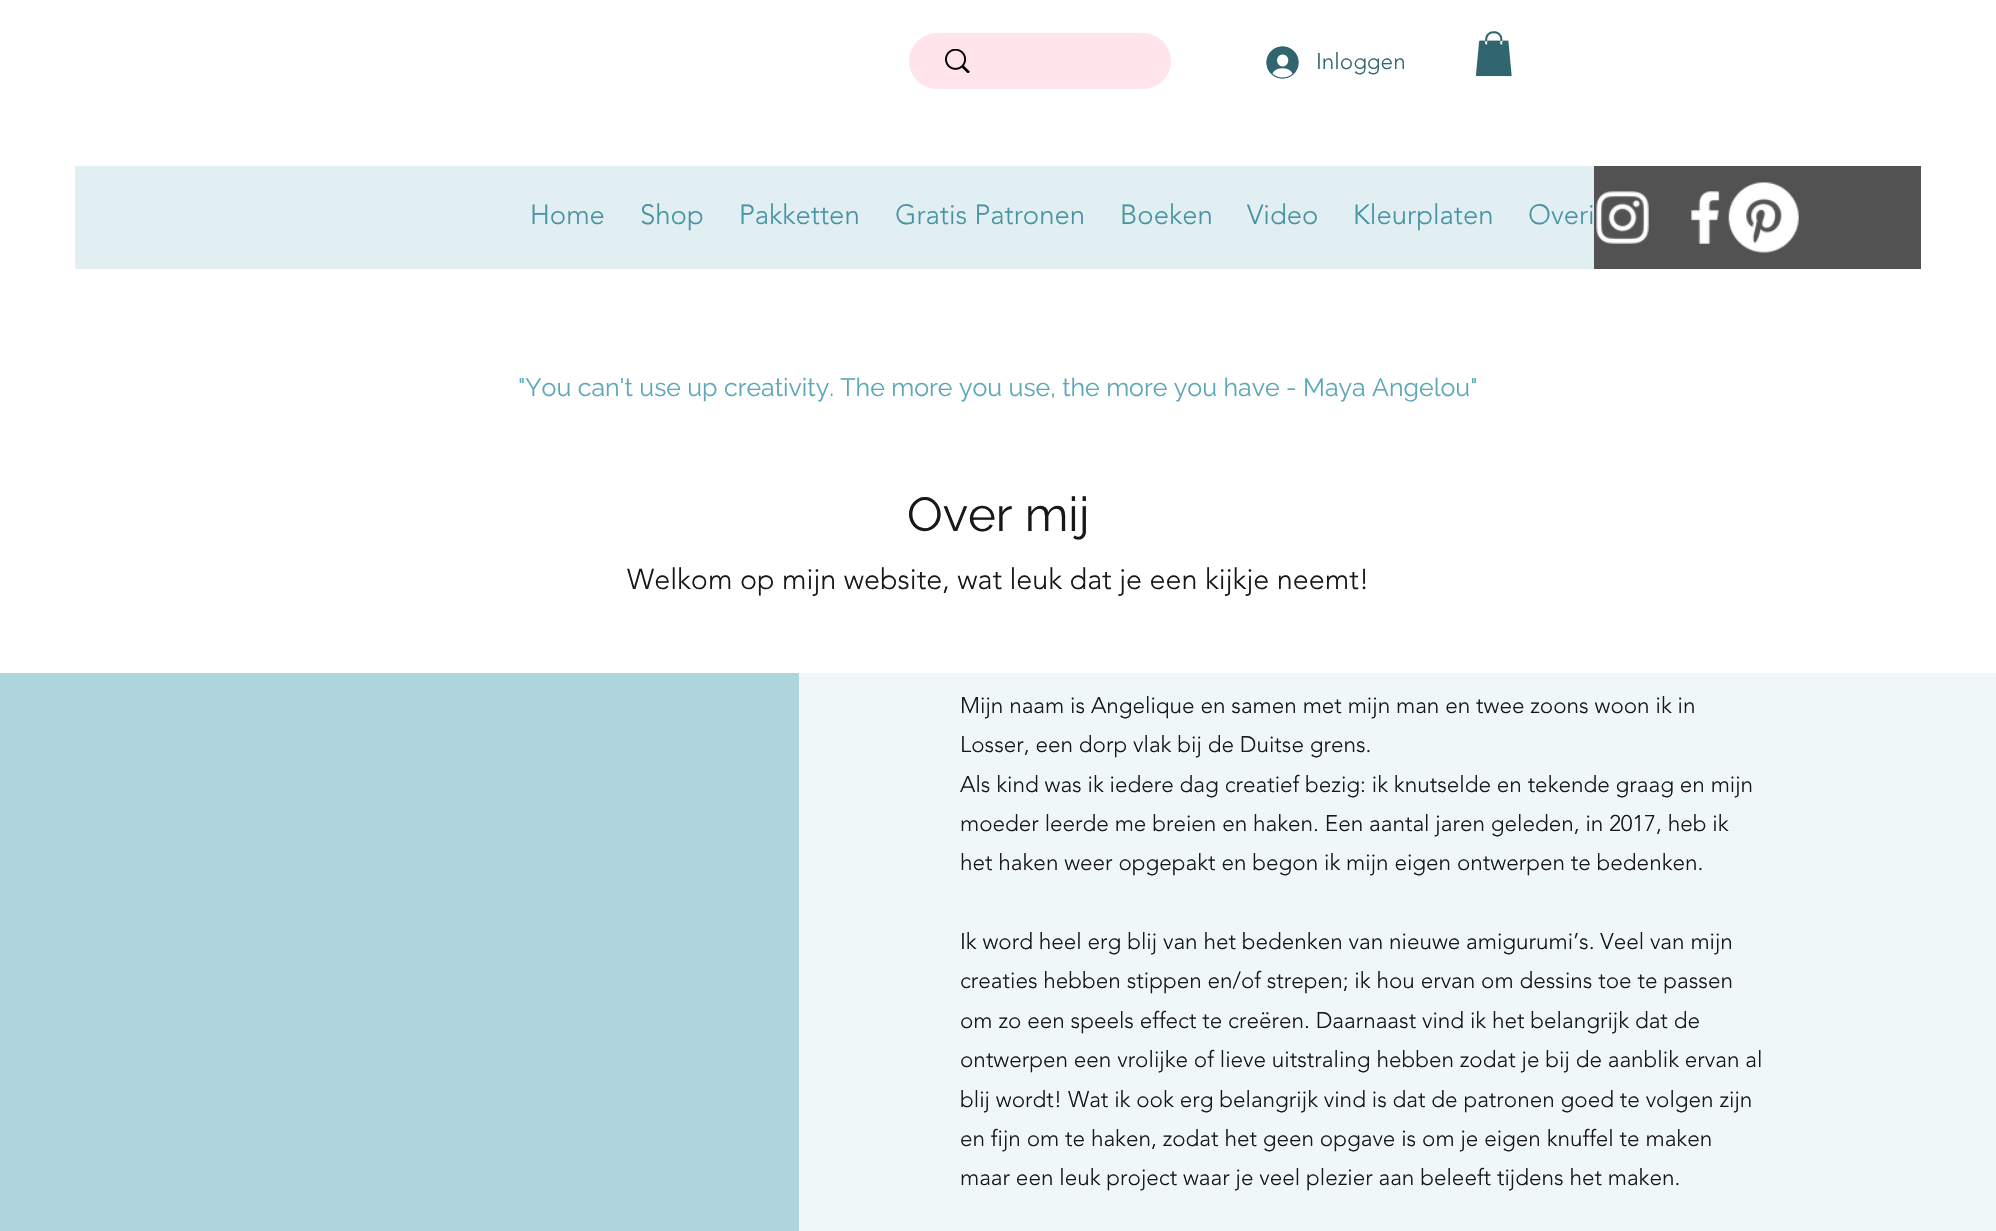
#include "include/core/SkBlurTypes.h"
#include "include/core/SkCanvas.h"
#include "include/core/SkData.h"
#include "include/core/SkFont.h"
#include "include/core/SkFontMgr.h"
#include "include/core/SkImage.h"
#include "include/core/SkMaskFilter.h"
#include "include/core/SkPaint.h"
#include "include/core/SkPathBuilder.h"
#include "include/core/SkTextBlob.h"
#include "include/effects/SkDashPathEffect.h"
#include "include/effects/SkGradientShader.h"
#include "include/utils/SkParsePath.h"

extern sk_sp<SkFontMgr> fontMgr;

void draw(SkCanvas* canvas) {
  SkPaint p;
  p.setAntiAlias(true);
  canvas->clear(SK_ColorWHITE);
  p.setColor(SkColorSetRGB(255, 228, 236));
  canvas->drawRoundRect(SkRect::MakeLTRB(909, 33, 1171, 89), 28, 28, p);
  canvas->drawImageRect(SkImages::DeferredFromEncodedData(SkData::MakeFromFileName("images/1.png")), SkRect::MakeLTRB(945, 49, 970, 73), SkSamplingOptions());
  canvas->drawImageRect(SkImages::DeferredFromEncodedData(SkData::MakeFromFileName("images/2.png")), SkRect::MakeLTRB(1266, 46, 1299, 79), SkSamplingOptions());
  canvas->drawImageRect(SkImages::DeferredFromEncodedData(SkData::MakeFromFileName("images/3.png")), SkRect::MakeLTRB(1475, 31, 1512, 77), SkSamplingOptions());
  p.setColor(SkColorSetRGB(225, 239, 242));
  canvas->drawRect(SkRect::MakeLTRB(75, 166, 1594, 269), p);
  p.setColor(SkColorSetRGB(82, 82, 82));
  canvas->drawRect(SkRect::MakeLTRB(1594, 166, 1921, 269), p);
  canvas->drawImageRect(SkImages::DeferredFromEncodedData(SkData::MakeFromFileName("images/4.png")), SkRect::MakeLTRB(1596, 191, 1649, 244), SkSamplingOptions());
  canvas->drawImageRect(SkImages::DeferredFromEncodedData(SkData::MakeFromFileName("images/5.png")), SkRect::MakeLTRB(1691, 191, 1720, 245), SkSamplingOptions());
  canvas->drawImageRect(SkImages::DeferredFromEncodedData(SkData::MakeFromFileName("images/6.png")), SkRect::MakeLTRB(1728, 182, 1799, 253), SkSamplingOptions());
  p.setColor(SkColorSetRGB(174, 212, 220));
  canvas->drawRect(SkRect::MakeLTRB(0, 673, 799, 1231), p);
  p.setColor(SkColorSetRGB(240, 247, 249));
  canvas->drawRect(SkRect::MakeLTRB(799, 673, 1996, 1231), p);
  SkFont font1(fontMgr->matchFamilyStyle("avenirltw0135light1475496", SkFontStyle(300, SkFontStyle::kNormal_Width, SkFontStyle::kUpright_Slant)), 22.5f);
  font1.setSubpixel(true);
  p.setColor(SkColorSetRGB(49, 101, 112));
  canvas->drawString("Inloggen", 1316, 69, font1, p);
  SkFont font2(fontMgr->matchFamilyStyle("avenirltw0135light1475496", SkFontStyle(300, SkFontStyle::kNormal_Width, SkFontStyle::kUpright_Slant)), 27.5f);
  font2.setSubpixel(true);
  p.setColor(SkColorSetRGB(71, 147, 163));
  canvas->drawString("Home", 530, 224, font2, p);
  canvas->drawString("Shop", 640, 224, font2, p);
  canvas->drawString("Pakketten", 739, 224, font2, p);
  canvas->drawString("Gratis Patronen", 895, 224, font2, p);
  canvas->drawString("Boeken", 1120, 224, font2, p);
  canvas->drawString("Video", 1247, 224, font2, p);
  canvas->drawString("Kleurplaten", 1353, 224, font2, p);
  canvas->drawString("Overi", 1528, 224, font2, p);
  SkFont font3(fontMgr->matchFamilyStyle("Raleway", SkFontStyle::Normal()), 25);
  font3.setSubpixel(true);
  p.setColor(SkColorSetRGB(93, 168, 184));
  canvas->drawString("\"You can't use up creativity. The more you use, the more you have - Maya Angelou\"", 518, 396, font3, p);
  SkFont font4(fontMgr->matchFamilyStyle("Raleway", SkFontStyle::Normal()), 47.5f);
  font4.setSubpixel(true);
  p.setColor(SkColorSetRGB(24, 24, 24));
  canvas->drawString("Over mij", 907, 531, font4, p);
  SkFont font5(fontMgr->matchFamilyStyle("avenirltw0135light1475496", SkFontStyle(300, SkFontStyle::kNormal_Width, SkFontStyle::kUpright_Slant)), 28.75f);
  font5.setSubpixel(true);
  canvas->drawString("Welkom op mijn website, wat leuk dat je een kijkje neemt!", 627, 589, font5, p);
  canvas->drawString("Mijn naam is Angelique en samen met mijn man en twee zoons woon ik in", 960, 713, font1, p);
  canvas->drawString("Losser, een dorp vlak bij de Duitse grens.", 960, 752, font1, p);
  canvas->drawString("Als kind was ik iedere dag creatief bezig: ik knutselde en tekende graag en mijn", 960, 792, font1, p);
  canvas->drawString("moeder leerde me breien en haken. Een aantal jaren geleden, in 2017, heb ik", 960, 831, font1, p);
  canvas->drawString("het haken weer opgepakt en begon ik mijn eigen ontwerpen te bedenken.", 960, 870, font1, p);
  canvas->drawString("Ik word heel erg blij van het bedenken van nieuwe amigurumi’s. Veel van mijn", 960, 949, font1, p);
  canvas->drawString("creaties hebben stippen en/of strepen; ik hou ervan om dessins toe te passen", 960, 988, font1, p);
  canvas->drawString("om zo een speels effect te creëren. Daarnaast vind ik het belangrijk dat de", 960, 1028, font1, p);
  canvas->drawString("ontwerpen een vrolijke of lieve uitstraling hebben zodat je bij de aanblik ervan al", 960, 1067, font1, p);
  canvas->drawString("blij wordt! Wat ik ook erg belangrijk vind is dat de patronen goed te volgen zijn", 960, 1107, font1, p);
  canvas->drawString("en fijn om te haken, zodat het geen opgave is om je eigen knuffel te maken", 960, 1146, font1, p);
  canvas->drawString("maar een leuk project waar je veel plezier aan beleeft tijdens het maken.", 960, 1185, font1, p);
}
